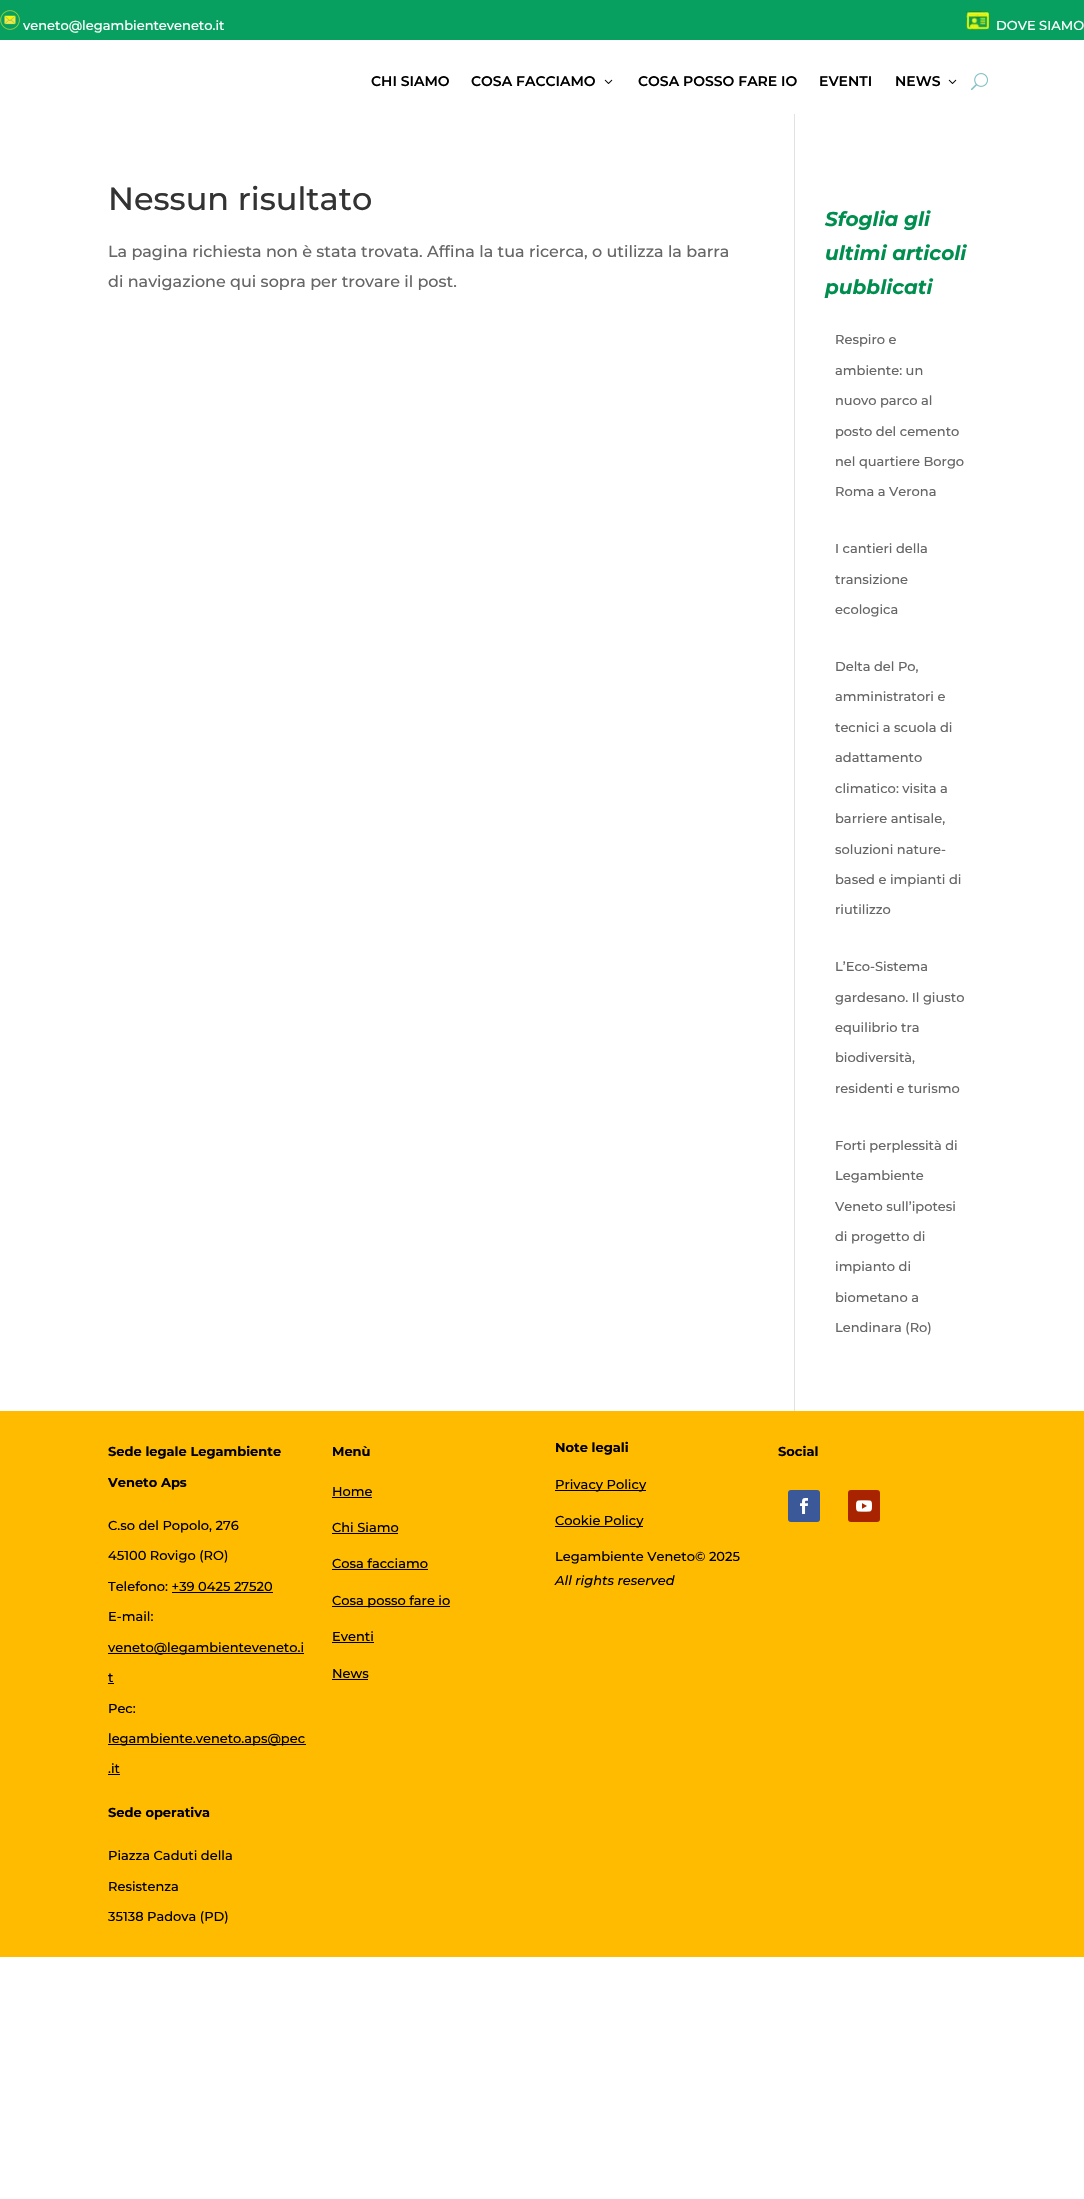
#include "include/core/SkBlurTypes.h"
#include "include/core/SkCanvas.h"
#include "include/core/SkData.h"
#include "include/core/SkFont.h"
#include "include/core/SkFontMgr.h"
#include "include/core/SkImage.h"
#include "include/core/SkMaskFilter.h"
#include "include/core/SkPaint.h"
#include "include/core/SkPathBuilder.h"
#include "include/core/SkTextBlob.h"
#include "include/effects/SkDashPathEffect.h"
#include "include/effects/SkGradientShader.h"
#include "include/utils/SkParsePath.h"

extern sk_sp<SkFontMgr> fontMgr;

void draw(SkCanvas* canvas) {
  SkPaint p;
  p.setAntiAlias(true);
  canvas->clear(SK_ColorWHITE);
  p.setColor(SkColorSetRGB(7, 160, 97));
  canvas->drawRect(SkRect::MakeLTRB(0, 0, 1084, 40), p);
  canvas->drawImageRect(SkImages::DeferredFromEncodedData(SkData::MakeFromFileName("images/1.png")), SkRect::MakeLTRB(0, 10, 20, 30), SkSamplingOptions());
  canvas->drawImageRect(SkImages::DeferredFromEncodedData(SkData::MakeFromFileName("images/2.png")), SkRect::MakeLTRB(966, 11, 989, 30), SkSamplingOptions());
  canvas->drawImageRect(SkImages::DeferredFromEncodedData(SkData::MakeFromFileName("images/3.png")), SkRect::MakeLTRB(604, 79, 613, 84), SkSamplingOptions());
  canvas->drawImageRect(SkImages::DeferredFromEncodedData(SkData::MakeFromFileName("images/3.png")), SkRect::MakeLTRB(948, 79, 957, 84), SkSamplingOptions());
  canvas->drawImageRect(SkImages::DeferredFromEncodedData(SkData::MakeFromFileName("images/4.png")), SkRect::MakeLTRB(971, 73, 988, 91), SkSamplingOptions());
  p.setColor(SkColorSetRGB(226, 226, 226));
  canvas->drawRect(SkRect::MakeLTRB(794, 114, 795, 1411), p);
  p.setColor(SkColorSetRGB(255, 187, 0));
  canvas->drawRect(SkRect::MakeLTRB(0, 1411, 1084, 1957), p);
  p.setColor(SK_ColorBLACK);
  canvas->drawRect(SkRect::MakeLTRB(172, 1592, 273, 1593), p);
  canvas->drawRect(SkRect::MakeLTRB(108, 1653, 304, 1654), p);
  canvas->drawRect(SkRect::MakeLTRB(108, 1683, 114, 1684), p);
  canvas->drawRect(SkRect::MakeLTRB(108, 1744, 306, 1745), p);
  canvas->drawRect(SkRect::MakeLTRB(108, 1774, 120, 1775), p);
  canvas->drawRect(SkRect::MakeLTRB(332, 1497, 372, 1498), p);
  canvas->drawRect(SkRect::MakeLTRB(332, 1533, 398, 1534), p);
  canvas->drawRect(SkRect::MakeLTRB(332, 1569, 428, 1570), p);
  canvas->drawRect(SkRect::MakeLTRB(332, 1606, 450, 1607), p);
  canvas->drawRect(SkRect::MakeLTRB(332, 1642, 374, 1643), p);
  canvas->drawRect(SkRect::MakeLTRB(332, 1679, 368, 1680), p);
  canvas->drawRect(SkRect::MakeLTRB(555, 1490, 646, 1491), p);
  canvas->drawRect(SkRect::MakeLTRB(555, 1526, 643, 1527), p);
  p.setColor(SkColorSetRGB(59, 89, 152));
  canvas->drawRoundRect(SkRect::MakeLTRB(788, 1490, 820, 1522), 3, 3, p);
  canvas->drawImageRect(SkImages::DeferredFromEncodedData(SkData::MakeFromFileName("images/5.png")), SkRect::MakeLTRB(800, 1498, 808, 1514), SkSamplingOptions());
  p.setColor(SkColorSetRGB(168, 36, 0));
  canvas->drawRoundRect(SkRect::MakeLTRB(848, 1490, 880, 1522), 3, 3, p);
  canvas->drawImageRect(SkImages::DeferredFromEncodedData(SkData::MakeFromFileName("images/6.png")), SkRect::MakeLTRB(856, 1500, 872, 1512), SkSamplingOptions());
  SkFont font1(fontMgr->matchFamilyStyle("Montserrat", SkFontStyle(500, SkFontStyle::kNormal_Width, SkFontStyle::kUpright_Slant)), 13);
  font1.setSubpixel(true);
  p.setColor(SK_ColorWHITE);
  canvas->drawString("veneto@legambienteveneto.it", 23, 30, font1, p);
  canvas->drawString("DOVE SIAMO", 996, 30, font1, p);
  SkFont font2(fontMgr->matchFamilyStyle("Montserrat", SkFontStyle(600, SkFontStyle::kNormal_Width, SkFontStyle::kUpright_Slant)), 14);
  font2.setSubpixel(true);
  p.setColor(SK_ColorBLACK);
  canvas->drawString("CHI SIAMO", 371, 86, font2, p);
  canvas->drawString("COSA FACCIAMO", 471, 86, font2, p);
  canvas->drawString("COSA POSSO FARE IO", 638, 86, font2, p);
  canvas->drawString("EVENTI", 819, 86, font2, p);
  canvas->drawString("NEWS", 895, 86, font2, p);
  SkFont font3(fontMgr->matchFamilyStyle("Montserrat", SkFontStyle(500, SkFontStyle::kNormal_Width, SkFontStyle::kUpright_Slant)), 32);
  font3.setSubpixel(true);
  p.setColor(SkColorSetRGB(51, 51, 51));
  canvas->drawString("Nessun risultato", 108, 210, font3, p);
  SkFont font4(fontMgr->matchFamilyStyle("Montserrat", SkFontStyle(500, SkFontStyle::kNormal_Width, SkFontStyle::kUpright_Slant)), 16);
  font4.setSubpixel(true);
  p.setColor(SkColorSetRGB(102, 102, 102));
  canvas->drawString("La pagina richiesta non è stata trovata. Affina la tua ricerca, o utilizza la barra", 108, 257, font4, p);
  canvas->drawString("di navigazione qui sopra per trovare il post.", 108, 287, font4, p);
  SkFont font5(fontMgr->matchFamilyStyle("Montserrat", SkFontStyle::BoldItalic()), 20);
  font5.setSubpixel(true);
  p.setColor(SkColorSetRGB(0, 142, 79));
  canvas->drawString("Sfoglia gli", 825, 226, font5, p);
  canvas->drawString("ultimi articoli", 825, 260, font5, p);
  canvas->drawString("pubblicati", 825, 294, font5, p);
  p.setColor(SkColorSetRGB(102, 102, 102));
  canvas->drawString("Respiro e", 835, 344, font1, p);
  canvas->drawString("ambiente: un", 835, 375, font1, p);
  canvas->drawString("nuovo parco al", 835, 405, font1, p);
  canvas->drawString("posto del cemento", 835, 436, font1, p);
  canvas->drawString("nel quartiere Borgo", 835, 466, font1, p);
  canvas->drawString("Roma a Verona", 835, 496, font1, p);
  canvas->drawString("I cantieri della", 835, 553, font1, p);
  canvas->drawString("transizione", 835, 584, font1, p);
  canvas->drawString("ecologica", 835, 614, font1, p);
  canvas->drawString("Delta del Po,", 835, 671, font1, p);
  canvas->drawString("amministratori e", 835, 701, font1, p);
  canvas->drawString("tecnici a scuola di", 835, 732, font1, p);
  canvas->drawString("adattamento", 835, 762, font1, p);
  canvas->drawString("climatico: visita a", 835, 793, font1, p);
  canvas->drawString("barriere antisale,", 835, 823, font1, p);
  canvas->drawString("soluzioni nature-", 835, 854, font1, p);
  canvas->drawString("based e impianti di", 835, 884, font1, p);
  canvas->drawString("riutilizzo", 835, 914, font1, p);
  canvas->drawString("L’Eco-Sistema", 835, 971, font1, p);
  canvas->drawString("gardesano. Il giusto", 835, 1002, font1, p);
  canvas->drawString("equilibrio tra", 835, 1032, font1, p);
  canvas->drawString("biodiversità,", 835, 1062, font1, p);
  canvas->drawString("residenti e turismo", 835, 1093, font1, p);
  canvas->drawString("Forti perplessità di", 835, 1150, font1, p);
  canvas->drawString("Legambiente", 835, 1180, font1, p);
  canvas->drawString("Veneto sull’ipotesi", 835, 1211, font1, p);
  canvas->drawString("di progetto di", 835, 1241, font1, p);
  canvas->drawString("impianto di", 835, 1271, font1, p);
  canvas->drawString("biometano a", 835, 1302, font1, p);
  canvas->drawString("Lendinara (Ro)", 835, 1332, font1, p);
  SkFont font6(fontMgr->matchFamilyStyle("Montserrat", SkFontStyle::Bold()), 13);
  font6.setSubpixel(true);
  p.setColor(SK_ColorBLACK);
  canvas->drawString("Sede legale Legambiente", 108, 1456, font6, p);
  canvas->drawString("Veneto Aps", 108, 1487, font6, p);
  canvas->drawString("C.so del Popolo, 276", 108, 1530, font1, p);
  canvas->drawString("45100 Rovigo (RO)", 108, 1560, font1, p);
  canvas->drawString("Telefono: +39 0425 27520", 108, 1591, font1, p);
  canvas->drawString("E-mail:", 108, 1621, font1, p);
  canvas->drawString("veneto@legambienteveneto.i", 108, 1652, font1, p);
  canvas->drawString("t", 108, 1682, font1, p);
  canvas->drawString("Pec:", 108, 1713, font1, p);
  canvas->drawString("legambiente.veneto.aps@pec", 108, 1743, font1, p);
  canvas->drawString(".it", 108, 1773, font1, p);
  canvas->drawString("Sede operativa", 108, 1817, font6, p);
  canvas->drawString("Piazza Caduti della", 108, 1860, font1, p);
  canvas->drawString("Resistenza", 108, 1891, font1, p);
  canvas->drawString("35138 Padova (PD)", 108, 1921, font1, p);
  canvas->drawString("Menù", 332, 1456, font6, p);
  canvas->drawString("Home", 332, 1496, font1, p);
  canvas->drawString("Chi Siamo", 332, 1532, font1, p);
  canvas->drawString("Cosa facciamo", 332, 1568, font1, p);
  canvas->drawString("Cosa posso fare io", 332, 1605, font1, p);
  canvas->drawString("Eventi", 332, 1641, font1, p);
  canvas->drawString("News", 332, 1678, font1, p);
  canvas->drawString("Note legali", 555, 1452, font6, p);
  canvas->drawString("Privacy Policy", 555, 1489, font1, p);
  canvas->drawString("Cookie Policy", 555, 1525, font1, p);
  canvas->drawString("Legambiente Veneto© 2025", 555, 1561, font1, p);
  SkFont font7(fontMgr->matchFamilyStyle("Montserrat", SkFontStyle(500, SkFontStyle::kNormal_Width, SkFontStyle::kItalic_Slant)), 13);
  font7.setSubpixel(true);
  canvas->drawString("All rights reserved", 555, 1585, font7, p);
  canvas->drawString("Social", 778, 1456, font6, p);
}
